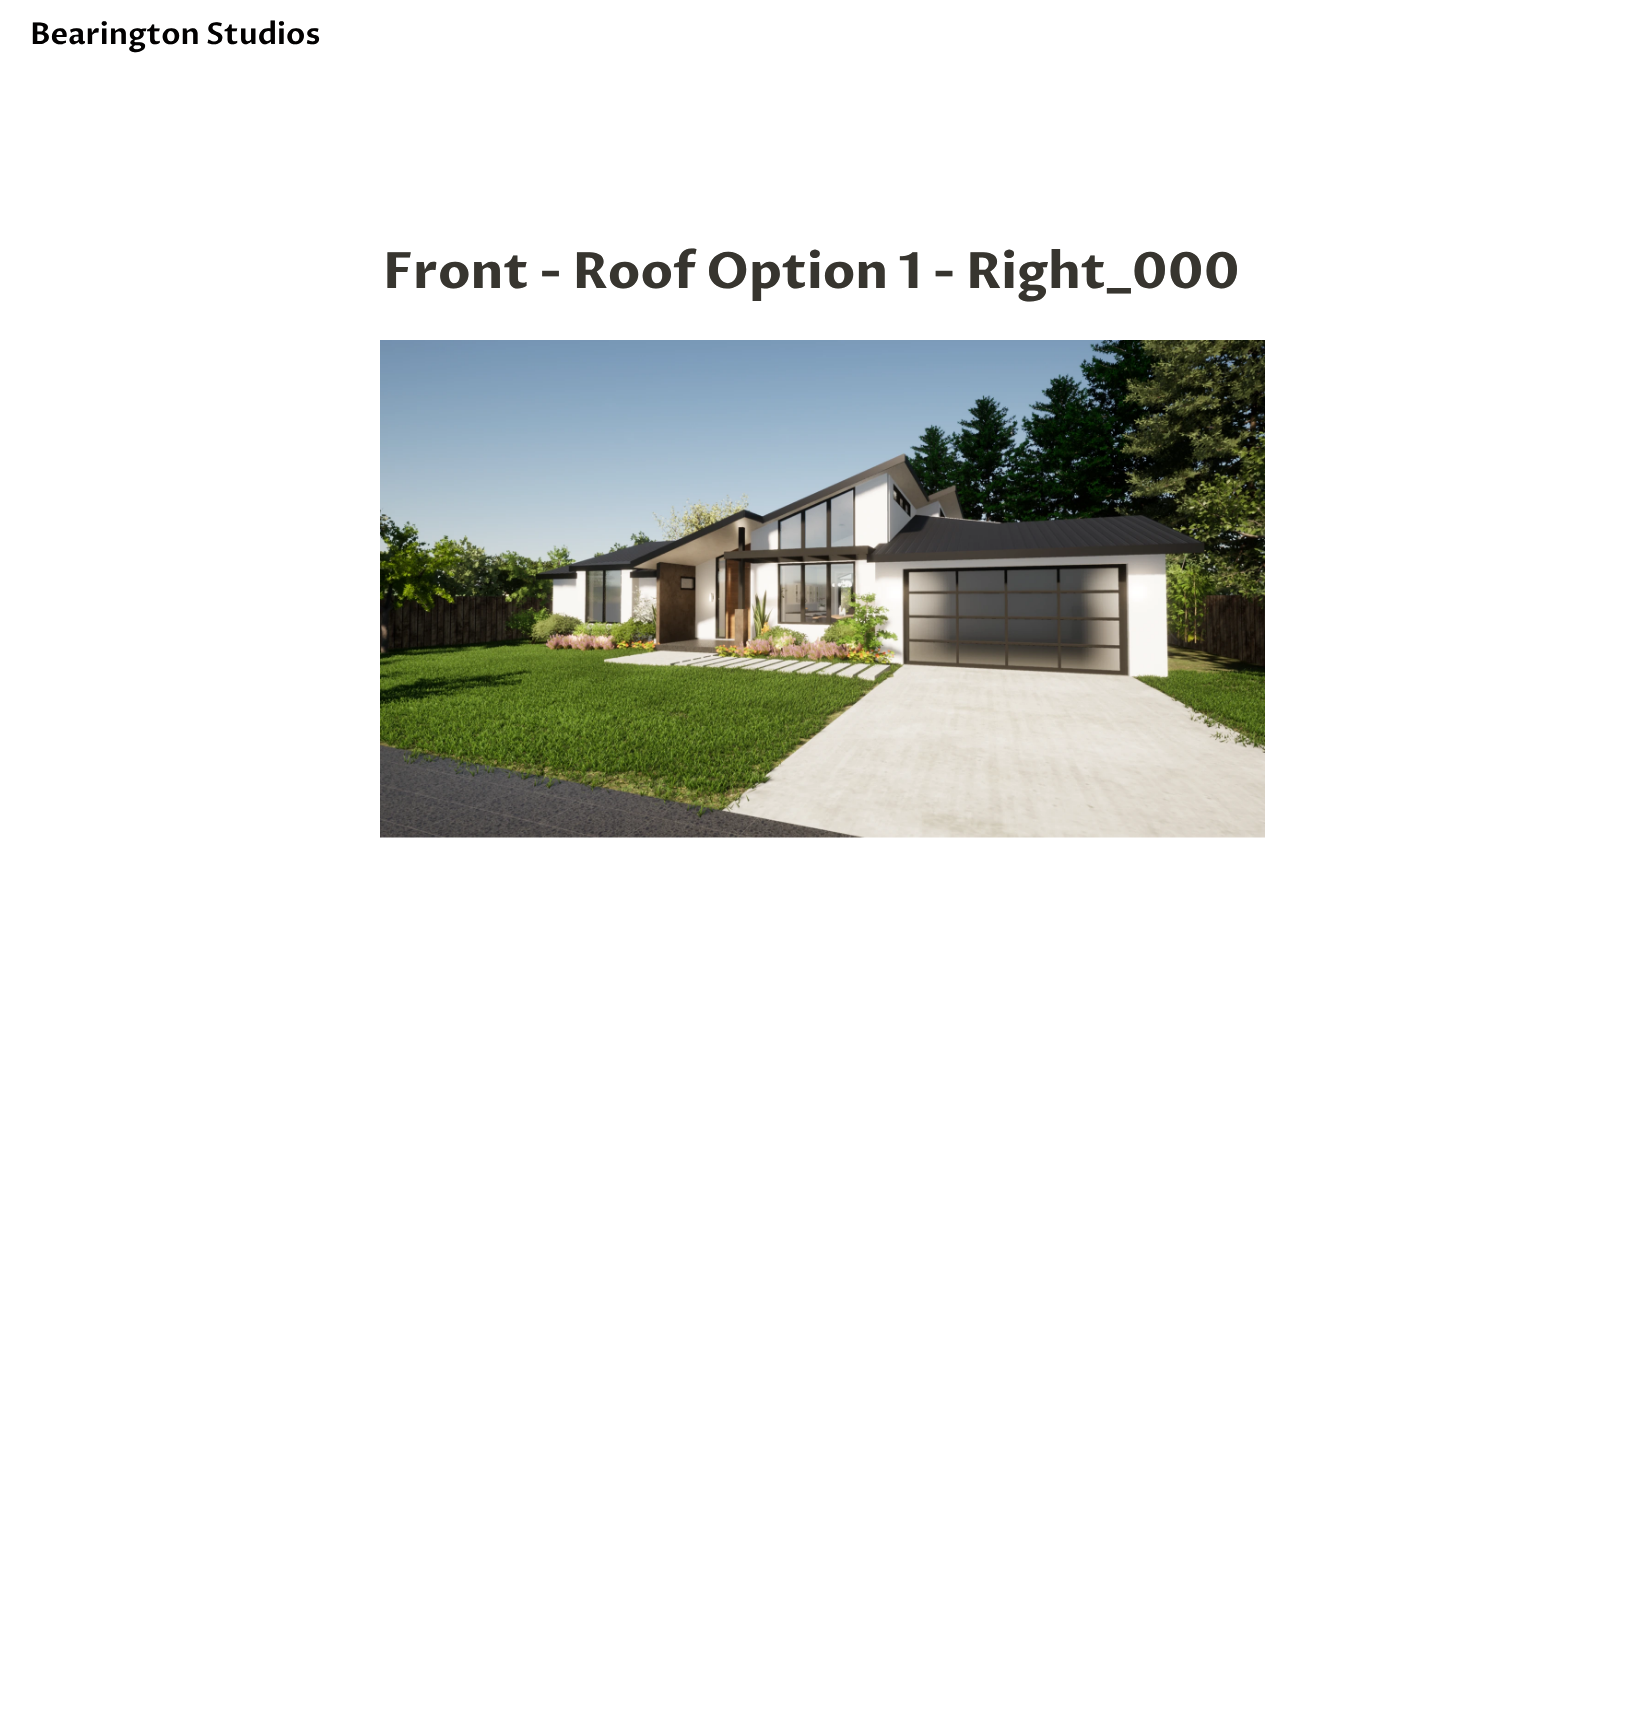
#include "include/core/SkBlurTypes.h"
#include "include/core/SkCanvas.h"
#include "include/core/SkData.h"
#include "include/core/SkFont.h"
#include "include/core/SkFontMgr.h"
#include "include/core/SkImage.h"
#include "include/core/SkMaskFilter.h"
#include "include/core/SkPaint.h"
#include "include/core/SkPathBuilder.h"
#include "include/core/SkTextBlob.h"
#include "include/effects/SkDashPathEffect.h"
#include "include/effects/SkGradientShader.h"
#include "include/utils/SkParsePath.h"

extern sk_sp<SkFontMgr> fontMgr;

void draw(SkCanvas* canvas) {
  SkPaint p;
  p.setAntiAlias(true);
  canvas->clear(SK_ColorWHITE);
  canvas->drawImageRect(SkImages::DeferredFromEncodedData(SkData::MakeFromFileName("images/1.png")), SkRect::MakeLTRB(380, 340, 1265, 838), SkSamplingOptions());
  SkFont font1(fontMgr->matchFamilyStyle("Proza Libre", SkFontStyle(600, SkFontStyle::kNormal_Width, SkFontStyle::kUpright_Slant)), 30);
  font1.setSubpixel(true);
  p.setColor(SkColorSetRGB(2, 1, 1));
  canvas->drawString("Bearington Studios", 30, 44, font1, p);
  SkFont font2(fontMgr->matchFamilyStyle("Proza Libre", SkFontStyle::Bold()), 50);
  font2.setSubpixel(true);
  p.setColor(SkColorSetRGB(55, 53, 47));
  canvas->drawString("Front - Roof Option 1 - Right_000", 383, 288, font2, p);
}
